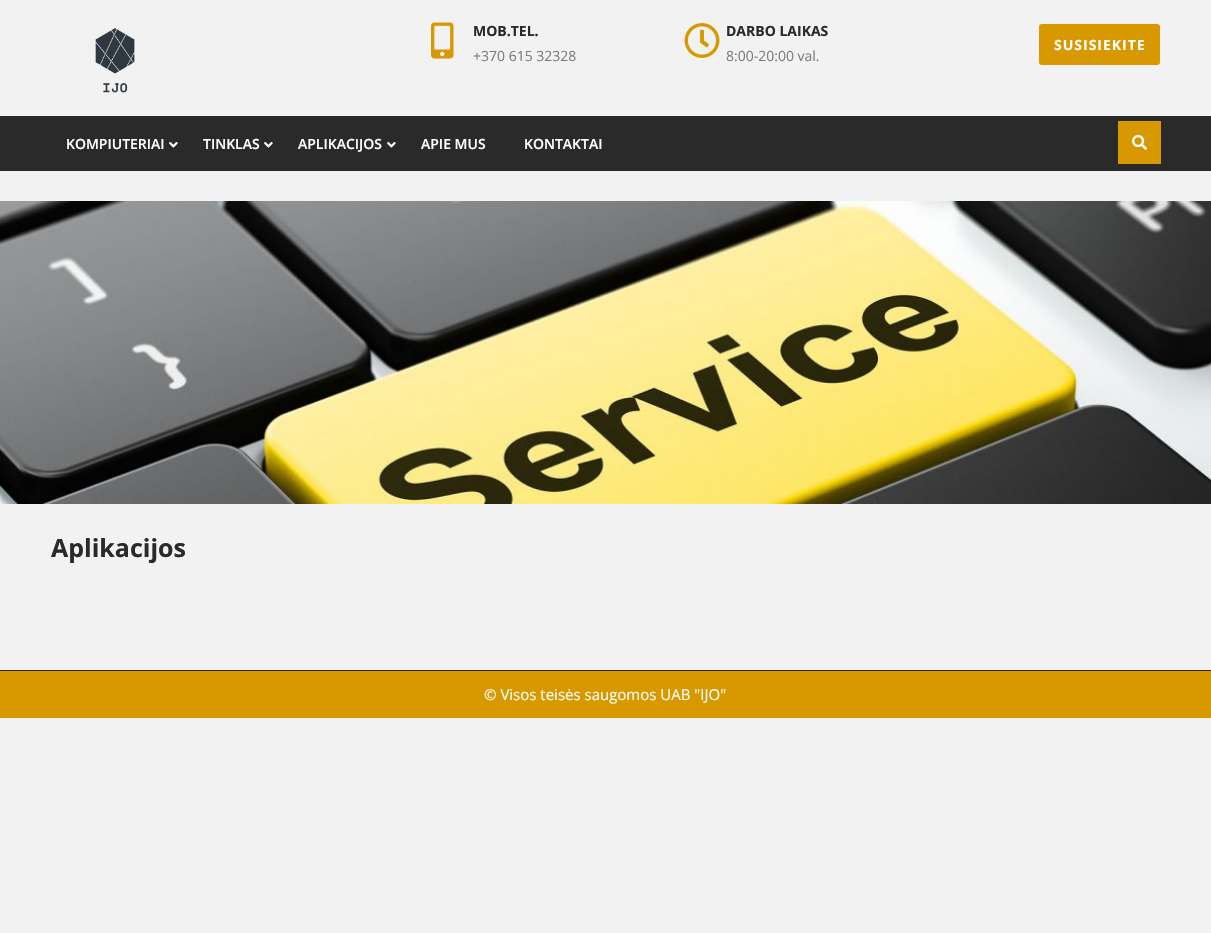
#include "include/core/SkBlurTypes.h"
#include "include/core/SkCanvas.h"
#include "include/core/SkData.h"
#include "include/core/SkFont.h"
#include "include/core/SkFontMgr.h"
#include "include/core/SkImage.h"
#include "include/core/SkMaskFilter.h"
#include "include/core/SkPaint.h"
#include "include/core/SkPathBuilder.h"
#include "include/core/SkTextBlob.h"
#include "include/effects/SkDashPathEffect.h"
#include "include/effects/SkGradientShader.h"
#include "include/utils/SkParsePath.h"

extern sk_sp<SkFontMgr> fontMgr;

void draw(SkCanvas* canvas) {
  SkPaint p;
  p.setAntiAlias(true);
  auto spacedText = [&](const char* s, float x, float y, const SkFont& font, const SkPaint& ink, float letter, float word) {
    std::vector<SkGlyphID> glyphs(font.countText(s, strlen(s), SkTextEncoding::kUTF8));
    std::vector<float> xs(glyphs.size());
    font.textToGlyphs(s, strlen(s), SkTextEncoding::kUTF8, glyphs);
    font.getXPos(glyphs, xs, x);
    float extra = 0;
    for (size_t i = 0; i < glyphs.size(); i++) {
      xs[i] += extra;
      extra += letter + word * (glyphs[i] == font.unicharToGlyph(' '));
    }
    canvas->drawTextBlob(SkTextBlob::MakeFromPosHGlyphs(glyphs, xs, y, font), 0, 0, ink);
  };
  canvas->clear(SkColorSetRGB(242, 242, 242));
  canvas->drawImageRect(SkImages::DeferredFromEncodedData(SkData::MakeFromFileName("images/1.png")), SkRect::MakeLTRB(95, 28, 135, 93), SkSamplingOptions());
  canvas->drawImageRect(SkImages::DeferredFromEncodedData(SkData::MakeFromFileName("images/2.png")), SkRect::MakeLTRB(431, 22, 454, 59), SkSamplingOptions());
  canvas->drawImageRect(SkImages::DeferredFromEncodedData(SkData::MakeFromFileName("images/3.png")), SkRect::MakeLTRB(684, 23, 720, 58), SkSamplingOptions());
  p.setColor(SkColorSetRGB(215, 152, 0));
  canvas->drawRoundRect(SkRect::MakeLTRB(1039, 24, 1160, 65), 3, 3, p);
  p.setColor(SkColorSetRGB(42, 42, 42));
  canvas->drawRect(SkRect::MakeLTRB(0, 116, 1211, 171), p);
  canvas->drawImageRect(SkImages::DeferredFromEncodedData(SkData::MakeFromFileName("images/4.png")), SkRect::MakeLTRB(169, 142, 178, 148), SkSamplingOptions());
  canvas->drawImageRect(SkImages::DeferredFromEncodedData(SkData::MakeFromFileName("images/4.png")), SkRect::MakeLTRB(264, 142, 273, 148), SkSamplingOptions());
  canvas->drawImageRect(SkImages::DeferredFromEncodedData(SkData::MakeFromFileName("images/4.png")), SkRect::MakeLTRB(387, 142, 396, 148), SkSamplingOptions());
  p.setColor(SkColorSetRGB(215, 152, 0));
  canvas->drawRect(SkRect::MakeLTRB(1118, 121, 1161, 164), p);
  canvas->drawImageRect(SkImages::DeferredFromEncodedData(SkData::MakeFromFileName("images/5.png")), SkRect::MakeLTRB(1132, 134, 1147, 150), SkSamplingOptions());
  canvas->drawImageRect(SkImages::DeferredFromEncodedData(SkData::MakeFromFileName("images/6.png")), SkRect::MakeLTRB(0, 201, 1211, 504), SkSamplingOptions());
  p.setColor(SkColorSetRGB(42, 42, 42));
  canvas->drawRect(SkRect::MakeLTRB(0, 670, 1211, 671), p);
  p.setColor(SkColorSetRGB(215, 152, 0));
  canvas->drawRect(SkRect::MakeLTRB(0, 671, 1211, 718), p);
  SkFont font1(fontMgr->matchFamilyStyle("Open Sans", SkFontStyle::Bold()), 14);
  font1.setSubpixel(true);
  p.setColor(SkColorSetRGB(42, 42, 42));
  canvas->drawString("MOB.TEL.", 473, 36, font1, p);
  SkFont font2(fontMgr->matchFamilyStyle("Open Sans", SkFontStyle::Normal()), 14);
  font2.setSubpixel(true);
  p.setColor(SkColorSetRGB(125, 125, 125));
  canvas->drawString("+370 615 32328", 473, 61, font2, p);
  p.setColor(SkColorSetRGB(42, 42, 42));
  canvas->drawString("DARBO LAIKAS", 726, 36, font1, p);
  p.setColor(SkColorSetRGB(125, 125, 125));
  canvas->drawString("8:00-20:00 val.", 726, 61, font2, p);
  p.setColor(SK_ColorWHITE);
  spacedText("SUSISIEKITE", 1054, 50, font1, p, 1, 0);
  SkFont font3(fontMgr->matchFamilyStyle("Open Sans", SkFontStyle(600, SkFontStyle::kNormal_Width, SkFontStyle::kUpright_Slant)), 14);
  font3.setSubpixel(true);
  canvas->drawString("KOMPIUTERIAI", 66, 149, font3, p);
  canvas->drawString("TINKLAS", 203, 149, font3, p);
  canvas->drawString("APLIKACIJOS", 298, 149, font3, p);
  canvas->drawString("APIE MUS", 421, 149, font3, p);
  canvas->drawString("KONTAKTAI", 524, 149, font3, p);
  SkFont font4(fontMgr->matchFamilyStyle("Open Sans", SkFontStyle::Bold()), 25);
  font4.setSubpixel(true);
  p.setColor(SkColorSetRGB(42, 42, 42));
  canvas->drawString("Aplikacijos", 51, 557, font4, p);
  SkFont font5(fontMgr->matchFamilyStyle("Open Sans", SkFontStyle::Normal()), 15);
  font5.setSubpixel(true);
  p.setColor(SK_ColorWHITE);
  canvas->drawString("© Visos teisės saugomos UAB \"IJO\"", 484, 700, font5, p);
}
